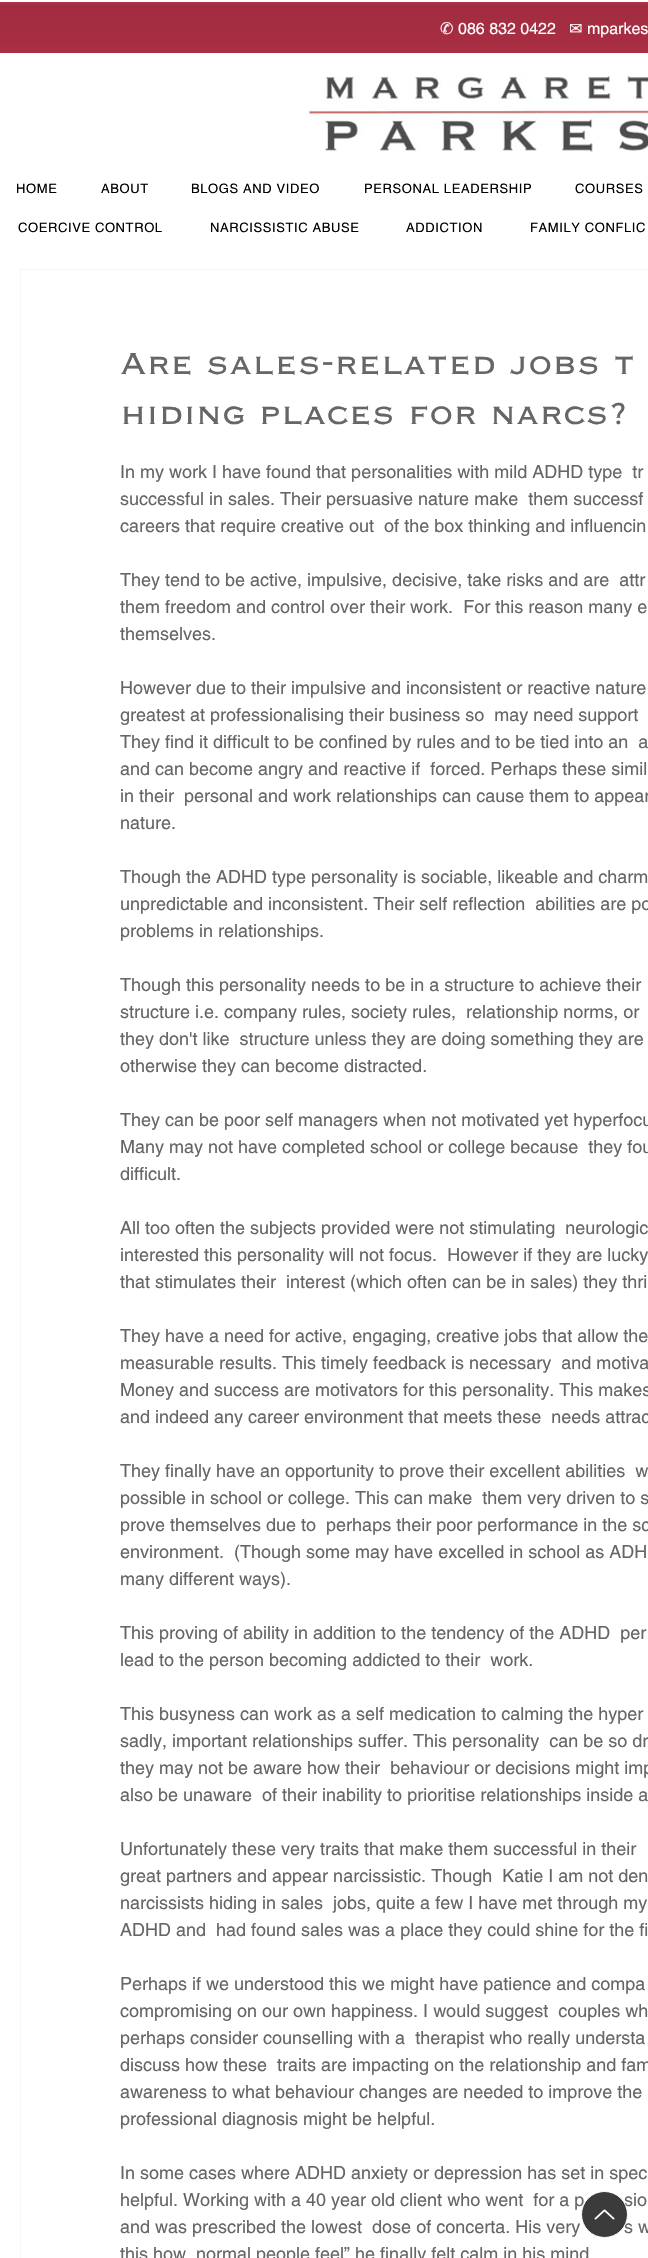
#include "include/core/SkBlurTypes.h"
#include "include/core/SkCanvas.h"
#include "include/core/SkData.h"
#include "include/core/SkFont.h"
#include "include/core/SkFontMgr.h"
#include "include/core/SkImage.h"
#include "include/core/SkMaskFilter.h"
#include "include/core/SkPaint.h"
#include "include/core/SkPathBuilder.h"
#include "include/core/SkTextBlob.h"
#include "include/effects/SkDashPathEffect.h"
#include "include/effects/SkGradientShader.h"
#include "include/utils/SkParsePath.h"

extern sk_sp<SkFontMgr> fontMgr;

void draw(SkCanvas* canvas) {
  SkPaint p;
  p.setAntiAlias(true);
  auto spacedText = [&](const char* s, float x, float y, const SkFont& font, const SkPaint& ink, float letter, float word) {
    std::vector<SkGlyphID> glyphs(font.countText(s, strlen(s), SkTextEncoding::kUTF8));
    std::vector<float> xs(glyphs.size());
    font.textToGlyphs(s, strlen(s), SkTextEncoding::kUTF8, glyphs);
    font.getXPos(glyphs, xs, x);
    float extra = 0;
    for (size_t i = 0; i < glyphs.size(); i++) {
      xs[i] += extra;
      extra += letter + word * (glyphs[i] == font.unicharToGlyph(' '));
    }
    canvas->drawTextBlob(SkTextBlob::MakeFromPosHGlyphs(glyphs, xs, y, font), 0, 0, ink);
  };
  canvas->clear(SK_ColorWHITE);
  p.setColor(SkColorSetRGB(177, 48, 70));
  canvas->drawRect(SkRect::MakeLTRB(0, 2, 648, 53), p);
  canvas->drawImageRect(SkImages::DeferredFromEncodedData(SkData::MakeFromFileName("images/1.png")), SkRect::MakeLTRB(0, 4, 648, 53), SkSamplingOptions());
  canvas->drawImageRect(SkImages::DeferredFromEncodedData(SkData::MakeFromFileName("images/2.png")), SkRect::MakeLTRB(306, 76, 648, 152), SkSamplingOptions());
  p.setStyle(SkPaint::kStroke_Style);
  p.setStrokeWidth(1);
  p.setColor(SkColorSetRGB(245, 245, 245));
  canvas->drawRect(SkRect::MakeLTRB(20.5f, 269.5f, 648.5f, 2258.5f), p);
  SkFont font1(fontMgr->matchFamilyStyle("DejaVu Sans", SkFontStyle::Normal()), 16);
  font1.setSubpixel(true);
  p.setStyle(SkPaint::kFill_Style);
  p.setColor(SK_ColorWHITE);
  canvas->drawString("✆", 440, 34, font1, p);
  SkFont font2(fontMgr->matchFamilyStyle("helvetica", SkFontStyle::Normal()), 16);
  font2.setSubpixel(true);
  canvas->drawString("086 832 0422", 458, 34, font2, p);
  canvas->drawString("✉", 569, 34, font1, p);
  canvas->drawString("mparkes", 587, 34, font2, p);
  SkFont font3(fontMgr->matchFamilyStyle("helvetica", SkFontStyle::Normal()), 13);
  font3.setSubpixel(true);
  p.setColor(SK_ColorBLACK);
  spacedText("HOME", 16, 193, font3, p, 0.6f, 0);
  spacedText("ABOUT", 101, 193, font3, p, 0.6f, 0);
  spacedText("BLOGS AND VIDEO", 191, 193, font3, p, 0.6f, 0);
  spacedText("PERSONAL LEADERSHIP", 364, 193, font3, p, 0.6f, 0);
  spacedText("COURSES", 575, 193, font3, p, 0.6f, 0);
  spacedText("COERCIVE CONTROL", 18, 232, font3, p, 0.6f, 0);
  spacedText("NARCISSISTIC ABUSE", 210, 232, font3, p, 0.6f, 0);
  spacedText("ADDICTION", 406, 232, font3, p, 0.6f, 0);
  spacedText("FAMILY CONFLIC", 530, 232, font3, p, 0.6f, 0);
  SkFont font4(fontMgr->matchFamilyStyle("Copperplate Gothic", SkFontStyle::Normal()), 40);
  font4.setSubpixel(true);
  p.setColor(SkColorSetRGB(102, 102, 102));
  canvas->drawString("Are sales-related jobs t", 120, 374, font4, p);
  canvas->drawString("hiding places for narcs?", 120, 424, font4, p);
  SkFont font5(fontMgr->matchFamilyStyle("helvetica", SkFontStyle::Normal()), 18);
  font5.setSubpixel(true);
  canvas->drawString("In my work I have found that personalities with mild ADHD type  tr", 120, 478, font5, p);
  canvas->drawString("successful in sales. Their persuasive nature make  them successf", 120, 505, font5, p);
  canvas->drawString("careers that require creative out  of the box thinking and influencin", 120, 532, font5, p);
  canvas->drawString("They tend to be active, impulsive, decisive, take risks and are  attr", 120, 586, font5, p);
  canvas->drawString("them freedom and control over their work.  For this reason many e", 120, 613, font5, p);
  canvas->drawString("themselves.", 120, 640, font5, p);
  canvas->drawString("However due to their impulsive and inconsistent or reactive nature", 120, 694, font5, p);
  canvas->drawString("greatest at professionalising their business so  may need support", 120, 721, font5, p);
  canvas->drawString("They find it difficult to be confined by rules and to be tied into an  a", 120, 748, font5, p);
  canvas->drawString("and can become angry and reactive if  forced. Perhaps these simil", 120, 775, font5, p);
  canvas->drawString("in their  personal and work relationships can cause them to appear", 120, 802, font5, p);
  canvas->drawString("nature.", 120, 829, font5, p);
  canvas->drawString("Though the ADHD type personality is sociable, likeable and charm", 120, 883, font5, p);
  canvas->drawString("unpredictable and inconsistent. Their self reflection  abilities are po", 120, 910, font5, p);
  canvas->drawString("problems in relationships.", 120, 937, font5, p);
  canvas->drawString("Though this personality needs to be in a structure to achieve their", 120, 991, font5, p);
  canvas->drawString("structure i.e. company rules, society rules,  relationship norms, or", 120, 1018, font5, p);
  canvas->drawString("they don't like  structure unless they are doing something they are", 120, 1045, font5, p);
  canvas->drawString("otherwise they can become distracted.", 120, 1072, font5, p);
  canvas->drawString("They can be poor self managers when not motivated yet hyperfocu", 120, 1126, font5, p);
  canvas->drawString("Many may not have completed school or college because  they fou", 120, 1153, font5, p);
  canvas->drawString("difficult.", 120, 1180, font5, p);
  canvas->drawString("All too often the subjects provided were not stimulating  neurologic", 120, 1234, font5, p);
  canvas->drawString("interested this personality will not focus.  However if they are lucky", 120, 1261, font5, p);
  canvas->drawString("that stimulates their  interest (which often can be in sales) they thri", 120, 1288, font5, p);
  canvas->drawString("They have a need for active, engaging, creative jobs that allow the", 120, 1342, font5, p);
  canvas->drawString("measurable results. This timely feedback is necessary  and motiva", 120, 1369, font5, p);
  canvas->drawString("Money and success are motivators for this personality. This makes", 120, 1396, font5, p);
  canvas->drawString("and indeed any career environment that meets these  needs attrac", 120, 1423, font5, p);
  canvas->drawString("They finally have an opportunity to prove their excellent abilities  w", 120, 1477, font5, p);
  canvas->drawString("possible in school or college. This can make  them very driven to s", 120, 1504, font5, p);
  canvas->drawString("prove themselves due to  perhaps their poor performance in the sc", 120, 1531, font5, p);
  canvas->drawString("environment.  (Though some may have excelled in school as ADH", 120, 1558, font5, p);
  canvas->drawString("many different ways).", 120, 1585, font5, p);
  canvas->drawString("This proving of ability in addition to the tendency of the ADHD  per", 120, 1639, font5, p);
  canvas->drawString("lead to the person becoming addicted to their  work.", 120, 1666, font5, p);
  canvas->drawString("This busyness can work as a self medication to calming the hyper", 120, 1720, font5, p);
  canvas->drawString("sadly, important relationships suffer. This personality  can be so dr", 120, 1747, font5, p);
  canvas->drawString("they may not be aware how their  behaviour or decisions might imp", 120, 1774, font5, p);
  canvas->drawString("also be unaware  of their inability to prioritise relationships inside a", 120, 1801, font5, p);
  canvas->drawString("Unfortunately these very traits that make them successful in their", 120, 1855, font5, p);
  canvas->drawString("great partners and appear narcissistic. Though  Katie I am not den", 120, 1882, font5, p);
  canvas->drawString("narcissists hiding in sales  jobs, quite a few I have met through my", 120, 1909, font5, p);
  canvas->drawString("ADHD and  had found sales was a place they could shine for the fi", 120, 1936, font5, p);
  canvas->drawString("Perhaps if we understood this we might have patience and compa", 120, 1990, font5, p);
  canvas->drawString("compromising on our own happiness. I would suggest  couples wh", 120, 2017, font5, p);
  canvas->drawString("perhaps consider counselling with a  therapist who really understa", 120, 2044, font5, p);
  canvas->drawString("discuss how these  traits are impacting on the relationship and fam", 120, 2071, font5, p);
  canvas->drawString("awareness to what behaviour changes are needed to improve the", 120, 2098, font5, p);
  canvas->drawString("professional diagnosis might be helpful.", 120, 2125, font5, p);
  canvas->drawString("In some cases where ADHD anxiety or depression has set in spec", 120, 2179, font5, p);
  canvas->drawString("helpful. Working with a 40 year old client who went  for a p", 120, 2206, font5, p);
  canvas->drawString("sio", 624, 2206, font5, p);
  canvas->drawString("and was prescribed the lowest  dose of concerta. His very", 120, 2233, font5, p);
  canvas->drawString("s w", 624, 2233, font5, p);
  canvas->drawString("this how  normal people feel” he finally felt calm in his mind", 120, 2260, font5, p);
  p.setColor(SkColorSetRGB(59, 59, 59));
  canvas->drawCircle(604.5f, 2214.5f, 23, p);
  p.setStyle(SkPaint::kStroke_Style);
  p.setColor(SK_ColorWHITE);
  canvas->drawCircle(604.5f, 2214.5f, 23, p);
  canvas->drawImageRect(SkImages::DeferredFromEncodedData(SkData::MakeFromFileName("images/3.png")), SkRect::MakeLTRB(594, 2209, 615, 2220), SkSamplingOptions());
}
